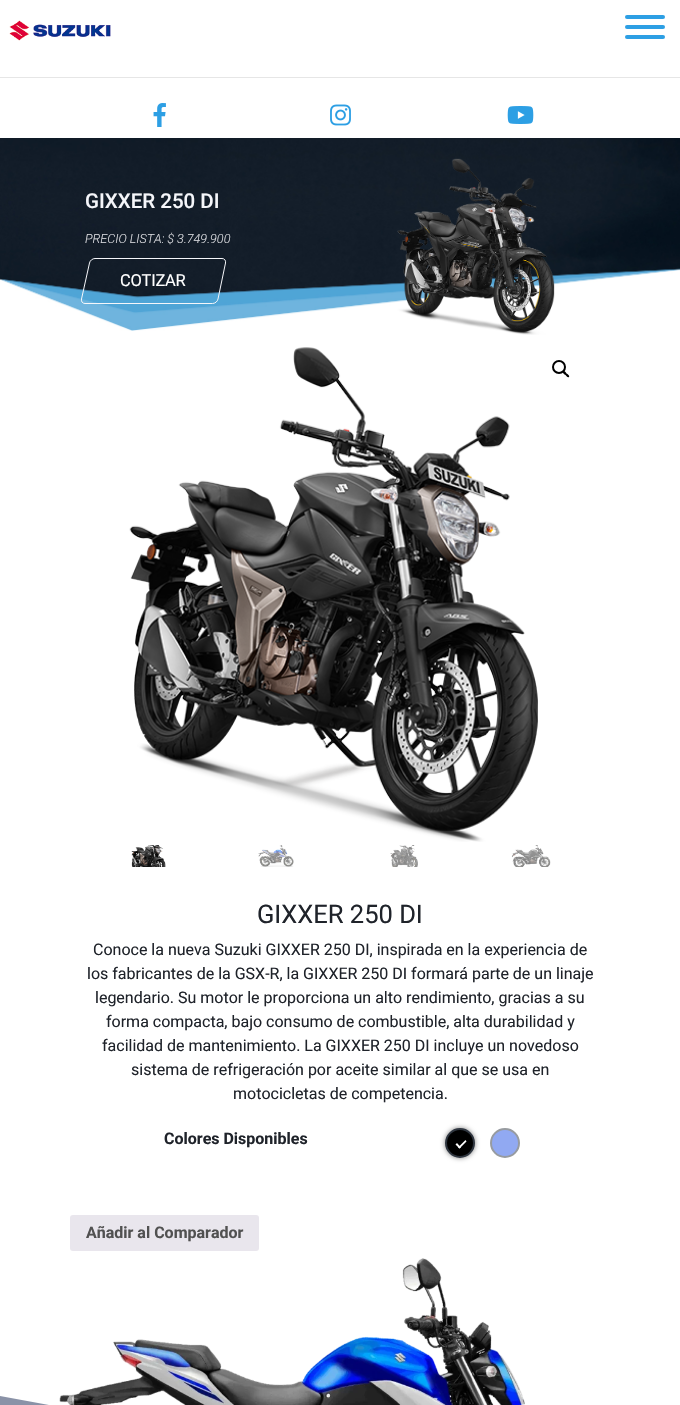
#include "include/core/SkBlurTypes.h"
#include "include/core/SkCanvas.h"
#include "include/core/SkData.h"
#include "include/core/SkFont.h"
#include "include/core/SkFontMgr.h"
#include "include/core/SkImage.h"
#include "include/core/SkMaskFilter.h"
#include "include/core/SkPaint.h"
#include "include/core/SkPathBuilder.h"
#include "include/core/SkTextBlob.h"
#include "include/effects/SkDashPathEffect.h"
#include "include/effects/SkGradientShader.h"
#include "include/utils/SkParsePath.h"

extern sk_sp<SkFontMgr> fontMgr;

void draw(SkCanvas* canvas) {
  SkPaint p;
  p.setAntiAlias(true);
  auto spacedText = [&](const char* s, float x, float y, const SkFont& font, const SkPaint& ink, float letter, float word) {
    std::vector<SkGlyphID> glyphs(font.countText(s, strlen(s), SkTextEncoding::kUTF8));
    std::vector<float> xs(glyphs.size());
    font.textToGlyphs(s, strlen(s), SkTextEncoding::kUTF8, glyphs);
    font.getXPos(glyphs, xs, x);
    float extra = 0;
    for (size_t i = 0; i < glyphs.size(); i++) {
      xs[i] += extra;
      extra += letter + word * (glyphs[i] == font.unicharToGlyph(' '));
    }
    canvas->drawTextBlob(SkTextBlob::MakeFromPosHGlyphs(glyphs, xs, y, font), 0, 0, ink);
  };
  canvas->clear(SK_ColorWHITE);
  canvas->drawImageRect(SkImages::DeferredFromEncodedData(SkData::MakeFromFileName("images/1.png")), SkRect::MakeLTRB(9, 20, 111, 41), SkSamplingOptions());
  p.setColor(SkColorSetRGB(45, 159, 228));
  canvas->drawRoundRect(SkRect::MakeLTRB(625, 25, 665, 29), 2, 2, p);
  canvas->drawRoundRect(SkRect::MakeLTRB(625, 15, 665, 19), 2, 2, p);
  canvas->drawRoundRect(SkRect::MakeLTRB(625, 35, 665, 39), 2, 2, p);
  p.setColor(SkColorSetRGB(230, 230, 230));
  canvas->drawRect(SkRect::MakeLTRB(0, 77, 680, 78), p);
  canvas->drawImageRect(SkImages::DeferredFromEncodedData(SkData::MakeFromFileName("images/2.png")), SkRect::MakeLTRB(153, 103, 166, 127), SkSamplingOptions());
  canvas->drawImageRect(SkImages::DeferredFromEncodedData(SkData::MakeFromFileName("images/3.png")), SkRect::MakeLTRB(330, 104, 351, 126), SkSamplingOptions());
  canvas->drawImageRect(SkImages::DeferredFromEncodedData(SkData::MakeFromFileName("images/4.png")), SkRect::MakeLTRB(507, 106, 534, 124), SkSamplingOptions());
  canvas->drawImageRect(SkImages::DeferredFromEncodedData(SkData::MakeFromFileName("images/5.png")), SkRect::MakeLTRB(0, 138, 680, 331), SkSamplingOptions());
  p.setStyle(SkPaint::kStroke_Style);
  p.setStrokeWidth(1);
  p.setColor(SkColorSetRGB(245, 246, 250));
  canvas->drawPath(SkPathBuilder().moveTo(95, 258.5f).lineTo(222, 258.5f).cubicTo(224.5f, 258.5f, 226, 260.5f, 225.5f, 263).lineTo(218, 299).cubicTo(217.5f, 301.5f, 215, 303.5f, 212.5f, 303.5f).lineTo(85, 303.5f).cubicTo(82.5f, 303.5f, 81, 301.5f, 81.5f, 299).lineTo(89.5f, 263).cubicTo(90, 260.5f, 92.5f, 258.5f, 95, 258.5f).close().detach(), p);
  canvas->drawImageRect(SkImages::DeferredFromEncodedData(SkData::MakeFromFileName("images/6.png")), SkRect::MakeLTRB(397, 158, 555, 335), SkSamplingOptions());
  canvas->drawImageRect(SkImages::DeferredFromEncodedData(SkData::MakeFromFileName("images/7.png")), SkRect::MakeLTRB(129, 347, 538, 842), SkSamplingOptions());
  p.setStrokeWidth(2);
  p.setColor(SK_ColorBLACK);
  canvas->drawCircle(559, 367, 6, p);
  p.setStyle(SkPaint::kFill_Style);
  canvas->drawPath(SkPathBuilder().moveTo(563, 371.5f).cubicTo(564.5f, 370, 566, 373, 566.5f, 373.5f).cubicTo(567.5f, 374, 570, 376, 569, 377).cubicTo(567.5f, 378, 566, 375.5f, 565.5f, 375).cubicTo(564.5f, 374.5f, 562, 372.5f, 563, 371.5f).close().detach(), p);
  canvas->drawImageRect(SkImages::DeferredFromEncodedData(SkData::MakeFromFileName("images/8.png")), SkRect::MakeLTRB(131, 845, 166, 867), SkSamplingOptions());
  canvas->drawImageRect(SkImages::DeferredFromEncodedData(SkData::MakeFromFileName("images/9.png")), SkRect::MakeLTRB(258, 845, 294, 867), SkSamplingOptions());
  canvas->drawImageRect(SkImages::DeferredFromEncodedData(SkData::MakeFromFileName("images/10.png")), SkRect::MakeLTRB(390, 845, 418, 867), SkSamplingOptions());
  canvas->drawImageRect(SkImages::DeferredFromEncodedData(SkData::MakeFromFileName("images/11.png")), SkRect::MakeLTRB(511, 845, 551, 867), SkSamplingOptions());
  p.setColor(SkColorSetARGB(128, 0, 0, 0));
  p.setMaskFilter(SkMaskFilter::MakeBlur(kNormal_SkBlurStyle, 2.5f));
  canvas->drawRoundRect(SkRect::MakeLTRB(445, 1128, 475, 1158), 15, 15, p);
  p.setMaskFilter(nullptr);
  p.setColor(SK_ColorBLACK);
  canvas->drawCircle(460, 1143, 14, p);
  p.setStyle(SkPaint::kStroke_Style);
  p.setColor(SkColorSetRGB(47, 54, 64));
  canvas->drawCircle(460, 1143, 14, p);
  p.setStyle(SkPaint::kFill_Style);
  p.setColor(SK_ColorWHITE);
  canvas->drawPath(SkPathBuilder().moveTo(465.5f, 1140).lineTo(466.5f, 1141.5f).lineTo(459.5f, 1148.5f).lineTo(458, 1147.5f).close().detach(), p);
  canvas->drawPath(SkPathBuilder().moveTo(457, 1143).lineTo(461, 1147.5f).lineTo(459.5f, 1148.5f).lineTo(455.5f, 1144.5f).close().detach(), p);
  p.setColor(SkColorSetRGB(145, 169, 242));
  canvas->drawCircle(505, 1143, 14, p);
  p.setStyle(SkPaint::kStroke_Style);
  p.setColor(SkColorSetRGB(151, 155, 160));
  canvas->drawCircle(505, 1143, 14, p);
  p.setStyle(SkPaint::kFill_Style);
  p.setColor(SkColorSetRGB(233, 230, 237));
  canvas->drawRoundRect(SkRect::MakeLTRB(70, 1215, 259, 1251), 3, 3, p);
  p.setColor(SkColorSetRGB(138, 146, 167));
  canvas->drawPath(SkPathBuilder().moveTo(0, 1396).lineTo(0, 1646).lineTo(680, 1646).lineTo(680, 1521).close().detach(), p);
  canvas->drawImageRect(SkImages::DeferredFromEncodedData(SkData::MakeFromFileName("images/12.png")), SkRect::MakeLTRB(59, 1258, 525, 1405), SkSamplingOptions());
  SkFont font1(fontMgr->matchFamilyStyle("Roboto", SkFontStyle(500, SkFontStyle::kNormal_Width, SkFontStyle::kUpright_Slant)), 20.5f);
  font1.setSubpixel(true);
  p.setColor(SkColorSetRGB(245, 246, 250));
  canvas->drawString("GIXXER 250 DI", 85, 208, font1, p);
  SkFont font2(fontMgr->matchFamilyStyle("Roboto", SkFontStyle(300, SkFontStyle::kNormal_Width, SkFontStyle::kItalic_Slant)), 12.6f);
  font2.setSubpixel(true);
  p.setColor(SkColorSetRGB(220, 221, 225));
  canvas->drawString("PRECIO LISTA: $ 3.749.900", 85, 243, font2, p);
  SkFont font3(fontMgr->matchFamilyStyle("Roboto", SkFontStyle::Normal()), 16.5f);
  font3.setSubpixel(true);
  p.setColor(SK_ColorWHITE);
  spacedText("COTIZAR", 120, 286, font3, p, -0.25f, 0);
  SkFont font4(fontMgr->matchFamilyStyle("Roboto", SkFontStyle::Normal()), 25.5f);
  font4.setSubpixel(true);
  p.setColor(SkColorSetRGB(31, 35, 42));
  canvas->drawString("GIXXER 250 DI", 257, 923, font4, p);
  SkFont font5(fontMgr->matchFamilyStyle("Roboto", SkFontStyle::Normal()), 16);
  font5.setSubpixel(true);
  canvas->drawString("Conoce la nueva Suzuki GIXXER 250 DI, inspirada en la experiencia de", 93, 955, font5, p);
  canvas->drawString("los fabricantes de la GSX-R, la GIXXER 250 DI formará parte de un linaje", 87, 979, font5, p);
  canvas->drawString("legendario. Su motor le proporciona un alto rendimiento, gracias a su", 95, 1003, font5, p);
  canvas->drawString("forma compacta, bajo consumo de combustible, alta durabilidad y", 106, 1027, font5, p);
  canvas->drawString("facilidad de mantenimiento. La GIXXER 250 DI incluye un novedoso", 102, 1051, font5, p);
  canvas->drawString("sistema de refrigeración por aceite similar al que se usa en", 131, 1075, font5, p);
  canvas->drawString("motocicletas de competencia.", 233, 1099, font5, p);
  SkFont font6(fontMgr->matchFamilyStyle("Roboto", SkFontStyle::Bold()), 16);
  font6.setSubpixel(true);
  canvas->drawString("Colores Disponibles", 164, 1144, font6, p);
  p.setColor(SkColorSetRGB(81, 81, 81));
  canvas->drawString("Añadir al Comparador", 86, 1238, font6, p);
}
